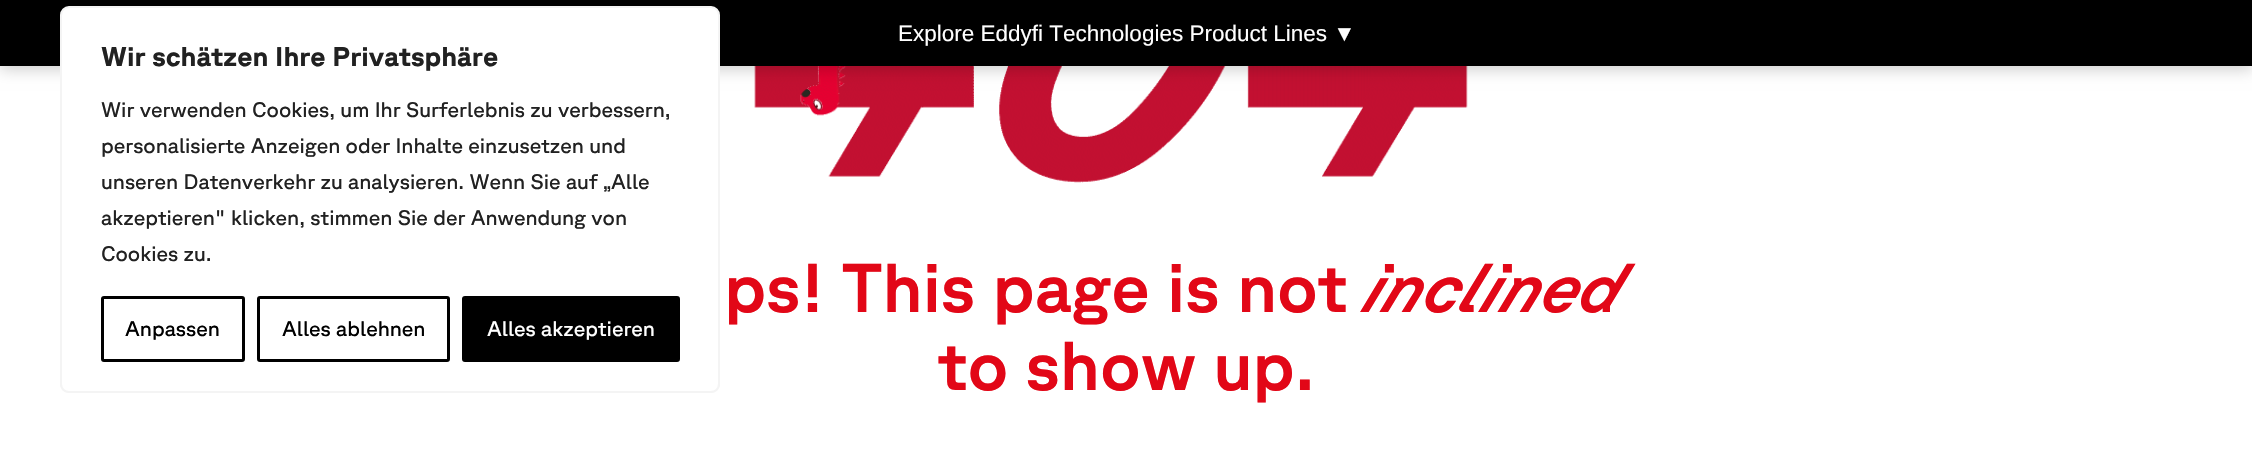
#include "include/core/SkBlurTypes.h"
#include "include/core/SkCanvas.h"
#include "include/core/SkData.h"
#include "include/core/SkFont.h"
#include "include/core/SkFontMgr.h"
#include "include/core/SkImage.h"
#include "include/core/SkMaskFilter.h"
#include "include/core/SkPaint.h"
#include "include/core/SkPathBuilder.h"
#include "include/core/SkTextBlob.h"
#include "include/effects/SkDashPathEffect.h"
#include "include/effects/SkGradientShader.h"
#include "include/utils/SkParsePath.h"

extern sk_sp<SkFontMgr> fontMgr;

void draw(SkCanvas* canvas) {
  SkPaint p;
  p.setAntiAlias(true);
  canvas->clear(SK_ColorWHITE);
  canvas->drawImageRect(SkImages::DeferredFromEncodedData(SkData::MakeFromFileName("images/1.png")), SkRect::MakeLTRB(754, 66, 1468, 183), SkSamplingOptions());
  p.setColor(SkColorSetARGB(51, 0, 0, 0));
  p.setMaskFilter(SkMaskFilter::MakeBlur(kNormal_SkBlurStyle, 7.5f));
  canvas->drawRect(SkRect::MakeLTRB(0, 3, 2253, 69), p);
  p.setMaskFilter(nullptr);
  p.setColor(SK_ColorBLACK);
  canvas->drawRect(SkRect::MakeLTRB(0, 0, 2252, 66), p);
  canvas->save();
  canvas->clipPath(SkPathBuilder().moveTo(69, 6).lineTo(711, 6).cubicTo(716, 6, 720, 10, 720, 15).lineTo(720, 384).cubicTo(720, 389, 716, 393, 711, 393).lineTo(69, 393).cubicTo(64, 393, 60, 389, 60, 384).lineTo(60, 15).cubicTo(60, 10, 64, 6, 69, 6).close().detach(), true);
  p.setColor(SkColorSetARGB(77, 172, 171, 171));
  p.setMaskFilter(SkMaskFilter::MakeBlur(kNormal_SkBlurStyle, 7.5f));
  canvas->drawRoundRect(SkRect::MakeLTRB(60, 5, 720, 392), 9, 9, p);
  p.setMaskFilter(nullptr);
  canvas->restore();
  p.setColor(SK_ColorWHITE);
  canvas->drawRoundRect(SkRect::MakeLTRB(61, 7, 719, 392), 8, 8, p);
  p.setStyle(SkPaint::kStroke_Style);
  p.setStrokeWidth(2);
  p.setColor(SkColorSetRGB(244, 244, 244));
  canvas->drawRoundRect(SkRect::MakeLTRB(61, 7, 719, 392), 8, 8, p);
  p.setStrokeWidth(3);
  p.setColor(SK_ColorBLACK);
  canvas->drawRoundRect(SkRect::MakeLTRB(102.5f, 297.5f, 243.5f, 360.5f), 1.5f, 1.5f, p);
  canvas->drawRoundRect(SkRect::MakeLTRB(258.5f, 297.5f, 448.5f, 360.5f), 1.5f, 1.5f, p);
  p.setStyle(SkPaint::kFill_Style);
  canvas->drawRoundRect(SkRect::MakeLTRB(463.5f, 297.5f, 678.5f, 360.5f), 1.5f, 1.5f, p);
  p.setStyle(SkPaint::kStroke_Style);
  canvas->drawRoundRect(SkRect::MakeLTRB(463.5f, 297.5f, 678.5f, 360.5f), 1.5f, 1.5f, p);
  SkFont font1(fontMgr->matchFamilyStyle("Liberation Sans", SkFontStyle::Normal()), 22.5f);
  font1.setSubpixel(true);
  p.setStyle(SkPaint::kFill_Style);
  p.setColor(SK_ColorWHITE);
  canvas->drawString("Explore Eddyfi Technologies Product Lines ▼", 898, 41, font1, p);
  SkFont font2(fontMgr->matchFamilyStyle("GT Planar", SkFontStyle::Bold()), 27);
  font2.setSubpixel(true);
  p.setColor(SkColorSetRGB(33, 33, 33));
  canvas->drawString("Wir schätzen Ihre Privatsphäre", 101, 66, font2, p);
  SkFont font3(fontMgr->matchFamilyStyle("GT Planar", SkFontStyle::Normal()), 21);
  font3.setSubpixel(true);
  canvas->drawString("Wir verwenden Cookies, um Ihr Surferlebnis zu verbessern,", 101, 117, font3, p);
  canvas->drawString("personalisierte Anzeigen oder Inhalte einzusetzen und", 101, 153, font3, p);
  canvas->drawString("unseren Datenverkehr zu analysieren. Wenn Sie auf „Alle", 101, 189, font3, p);
  canvas->drawString("akzeptieren\" klicken, stimmen Sie der Anwendung von", 101, 225, font3, p);
  canvas->drawString("Cookies zu.", 101, 261, font3, p);
  p.setColor(SK_ColorBLACK);
  canvas->drawString("Anpassen", 125, 336, font3, p);
  canvas->drawString("Alles ablehnen", 282, 336, font3, p);
  p.setColor(SK_ColorWHITE);
  canvas->drawString("Alles akzeptieren", 487, 336, font3, p);
  SkFont font4(fontMgr->matchFamilyStyle("GT Planar", SkFontStyle(500, SkFontStyle::kNormal_Width, SkFontStyle::kUpright_Slant)), 69);
  font4.setSubpixel(true);
  p.setColor(SkColorSetRGB(226, 7, 23));
  canvas->drawString("ps! This page is not", 724, 312, font4, p);
  SkFont font5(fontMgr->matchFamilyStyle("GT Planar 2", SkFontStyle(500, SkFontStyle::kNormal_Width, SkFontStyle::kUpright_Slant)), 69);
  font5.setSubpixel(true);
  canvas->drawString("inclined", 1365, 312, font5, p);
  canvas->drawString("to show up.", 938, 390, font4, p);
}
